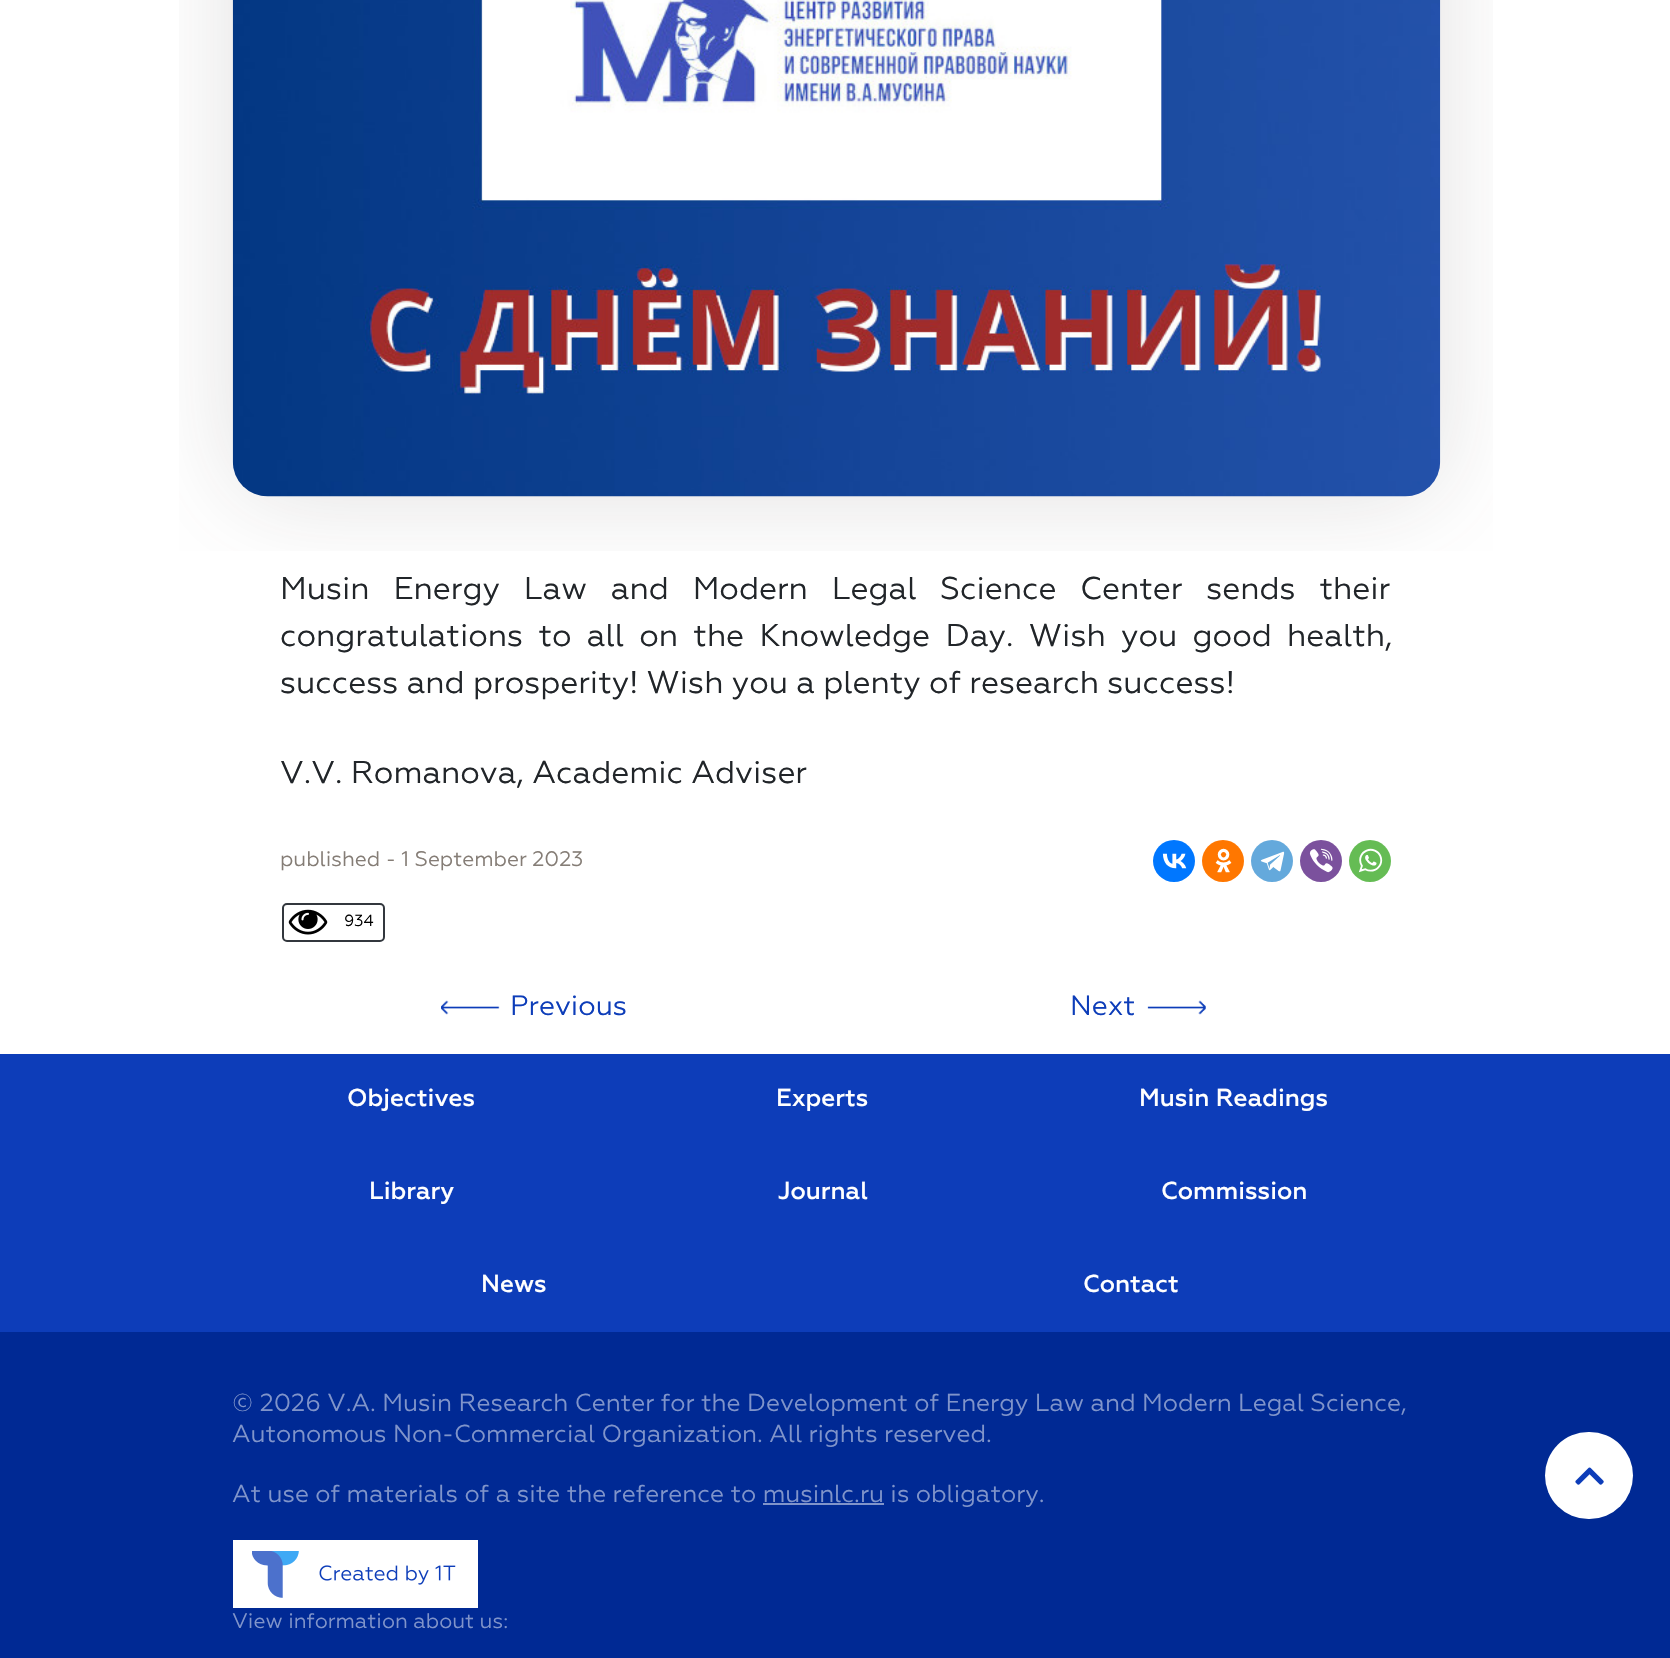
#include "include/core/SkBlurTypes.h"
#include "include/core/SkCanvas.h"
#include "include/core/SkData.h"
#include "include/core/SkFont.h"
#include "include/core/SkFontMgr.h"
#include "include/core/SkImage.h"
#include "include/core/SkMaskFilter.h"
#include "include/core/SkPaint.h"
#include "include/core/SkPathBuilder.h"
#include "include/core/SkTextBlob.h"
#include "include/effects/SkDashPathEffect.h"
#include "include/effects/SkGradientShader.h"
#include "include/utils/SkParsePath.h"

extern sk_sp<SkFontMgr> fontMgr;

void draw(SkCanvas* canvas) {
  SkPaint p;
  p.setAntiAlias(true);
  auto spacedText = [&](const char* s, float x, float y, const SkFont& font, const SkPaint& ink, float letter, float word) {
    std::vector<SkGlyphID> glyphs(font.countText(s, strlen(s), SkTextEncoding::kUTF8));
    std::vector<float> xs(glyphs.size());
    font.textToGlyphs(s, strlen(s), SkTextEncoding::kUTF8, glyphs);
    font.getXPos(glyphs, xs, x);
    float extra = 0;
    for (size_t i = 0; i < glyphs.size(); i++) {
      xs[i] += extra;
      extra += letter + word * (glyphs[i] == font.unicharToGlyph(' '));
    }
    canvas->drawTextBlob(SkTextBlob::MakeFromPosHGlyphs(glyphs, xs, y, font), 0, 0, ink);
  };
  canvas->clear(SK_ColorWHITE);
  canvas->drawImageRect(SkImages::DeferredFromEncodedData(SkData::MakeFromFileName("images/1.png")), SkRect::MakeLTRB(179, 0, 1493, 551), SkSamplingOptions());
  p.setStyle(SkPaint::kStroke_Style);
  p.setStrokeWidth(2);
  p.setColor(SkColorSetRGB(50, 55, 61));
  canvas->drawRoundRect(SkRect::MakeLTRB(283, 904, 384, 941), 4, 4, p);
  canvas->drawImageRect(SkImages::DeferredFromEncodedData(SkData::MakeFromFileName("images/2.png")), SkRect::MakeLTRB(288, 909, 328, 935), SkSamplingOptions());
  p.setStyle(SkPaint::kFill_Style);
  p.setColor(SkColorSetRGB(0, 119, 255));
  canvas->drawCircle(1174, 861, 21, p);
  canvas->drawImageRect(SkImages::DeferredFromEncodedData(SkData::MakeFromFileName("images/3.png")), SkRect::MakeLTRB(1162, 853, 1187, 869), SkSamplingOptions());
  p.setColor(SkColorSetRGB(255, 119, 0));
  canvas->drawCircle(1223, 861, 21, p);
  canvas->drawImageRect(SkImages::DeferredFromEncodedData(SkData::MakeFromFileName("images/4.png")), SkRect::MakeLTRB(1215, 848, 1232, 873), SkSamplingOptions());
  p.setColor(SkColorSetRGB(100, 169, 220));
  canvas->drawCircle(1272, 861, 21, p);
  canvas->drawImageRect(SkImages::DeferredFromEncodedData(SkData::MakeFromFileName("images/5.png")), SkRect::MakeLTRB(1260, 851, 1285, 872), SkSamplingOptions());
  p.setColor(SkColorSetRGB(123, 81, 157));
  canvas->drawCircle(1321, 861, 21, p);
  canvas->drawImageRect(SkImages::DeferredFromEncodedData(SkData::MakeFromFileName("images/6.png")), SkRect::MakeLTRB(1309, 848, 1333, 873), SkSamplingOptions());
  p.setColor(SkColorSetRGB(101, 188, 84));
  canvas->drawCircle(1370, 861, 21, p);
  canvas->drawImageRect(SkImages::DeferredFromEncodedData(SkData::MakeFromFileName("images/7.png")), SkRect::MakeLTRB(1358, 848, 1383, 873), SkSamplingOptions());
  canvas->drawImageRect(SkImages::DeferredFromEncodedData(SkData::MakeFromFileName("images/8.png")), SkRect::MakeLTRB(441, 1000, 500, 1015), SkSamplingOptions());
  canvas->drawImageRect(SkImages::DeferredFromEncodedData(SkData::MakeFromFileName("images/9.png")), SkRect::MakeLTRB(1147, 1000, 1206, 1015), SkSamplingOptions());
  p.setColor(SkColorSetRGB(13, 61, 185));
  canvas->drawRect(SkRect::MakeLTRB(0, 1054, 1670, 1332), p);
  p.setColor(SkColorSetRGB(0, 41, 148));
  canvas->drawRect(SkRect::MakeLTRB(0, 1332, 1670, 1658), p);
  p.setColor(SkColorSetRGB(128, 148, 202));
  canvas->drawRect(SkRect::MakeLTRB(763, 1503, 884, 1505), p);
  canvas->drawImageRect(SkImages::DeferredFromEncodedData(SkData::MakeFromFileName("images/10.png")), SkRect::MakeLTRB(233, 1540, 478, 1608), SkSamplingOptions());
  p.setColor(SK_ColorWHITE);
  canvas->drawRoundRect(SkRect::MakeLTRB(1545, 1432, 1633, 1519), 43.5f, 43.5f, p);
  canvas->drawImageRect(SkImages::DeferredFromEncodedData(SkData::MakeFromFileName("images/11.png")), SkRect::MakeLTRB(1575, 1467, 1604, 1485), SkSamplingOptions());
  SkFont font1(fontMgr->matchFamilyStyle("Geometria", SkFontStyle::Normal()), 31.5f);
  font1.setSubpixel(true);
  p.setColor(SkColorSetRGB(33, 37, 41));
  spacedText("Musin Energy Law and Modern Legal Science Center sends their", 280, 599, font1, p, 0, 15.5f);
  spacedText("congratulations to all on the Knowledge Day. Wish you good health,", 280, 646, font1, p, 0, 7);
  canvas->drawString("success and prosperity! Wish you a plenty of research success!", 280, 693, font1, p);
  canvas->drawString("V.V. Romanova, Academic Adviser", 280, 783, font1, p);
  SkFont font2(fontMgr->matchFamilyStyle("Geometria", SkFontStyle::Normal()), 16);
  font2.setSubpixel(true);
  p.setColor(SK_ColorBLACK);
  canvas->drawString("934", 344, 926, font2, p);
  SkFont font3(fontMgr->matchFamilyStyle("Geometria", SkFontStyle::Normal()), 21);
  font3.setSubpixel(true);
  p.setColor(SkColorSetRGB(133, 125, 118));
  canvas->drawString("published - 1 September 2023", 280, 866, font3, p);
  SkFont font4(fontMgr->matchFamilyStyle("Geometria", SkFontStyle::Normal()), 28);
  font4.setSubpixel(true);
  p.setColor(SkColorSetRGB(13, 61, 185));
  canvas->drawString("Previous", 510, 1015, font4, p);
  canvas->drawString("Next", 1070, 1015, font4, p);
  SkFont font5(fontMgr->matchFamilyStyle("Geometria", SkFontStyle(500, SkFontStyle::kNormal_Width, SkFontStyle::kUpright_Slant)), 24.5f);
  font5.setSubpixel(true);
  p.setColor(SK_ColorWHITE);
  canvas->drawString("Objectives", 347, 1106, font5, p);
  canvas->drawString("Experts", 776, 1106, font5, p);
  canvas->drawString("Musin Readings", 1139, 1106, font5, p);
  canvas->drawString("Library", 369, 1199, font5, p);
  canvas->drawString("Journal", 778, 1199, font5, p);
  canvas->drawString("Commission", 1161, 1199, font5, p);
  canvas->drawString("News", 481, 1292, font5, p);
  canvas->drawString("Contact", 1083, 1292, font5, p);
  SkFont font6(fontMgr->matchFamilyStyle("Geometria", SkFontStyle::Normal()), 24.5f);
  font6.setSubpixel(true);
  p.setColor(SkColorSetRGB(128, 148, 202));
  canvas->drawString("© 2026 V.A. Musin Research Center for the Development of Energy Law and Modern Legal Science,", 232, 1411, font6, p);
  canvas->drawString("Autonomous Non-Commercial Organization. All rights reserved.", 232, 1442, font6, p);
  canvas->drawString("At use of materials of a site the reference to musinlc.ru is obligatory.", 232, 1502, font6, p);
  canvas->drawString("View information about us:", 232, 1628, font3, p);
}
